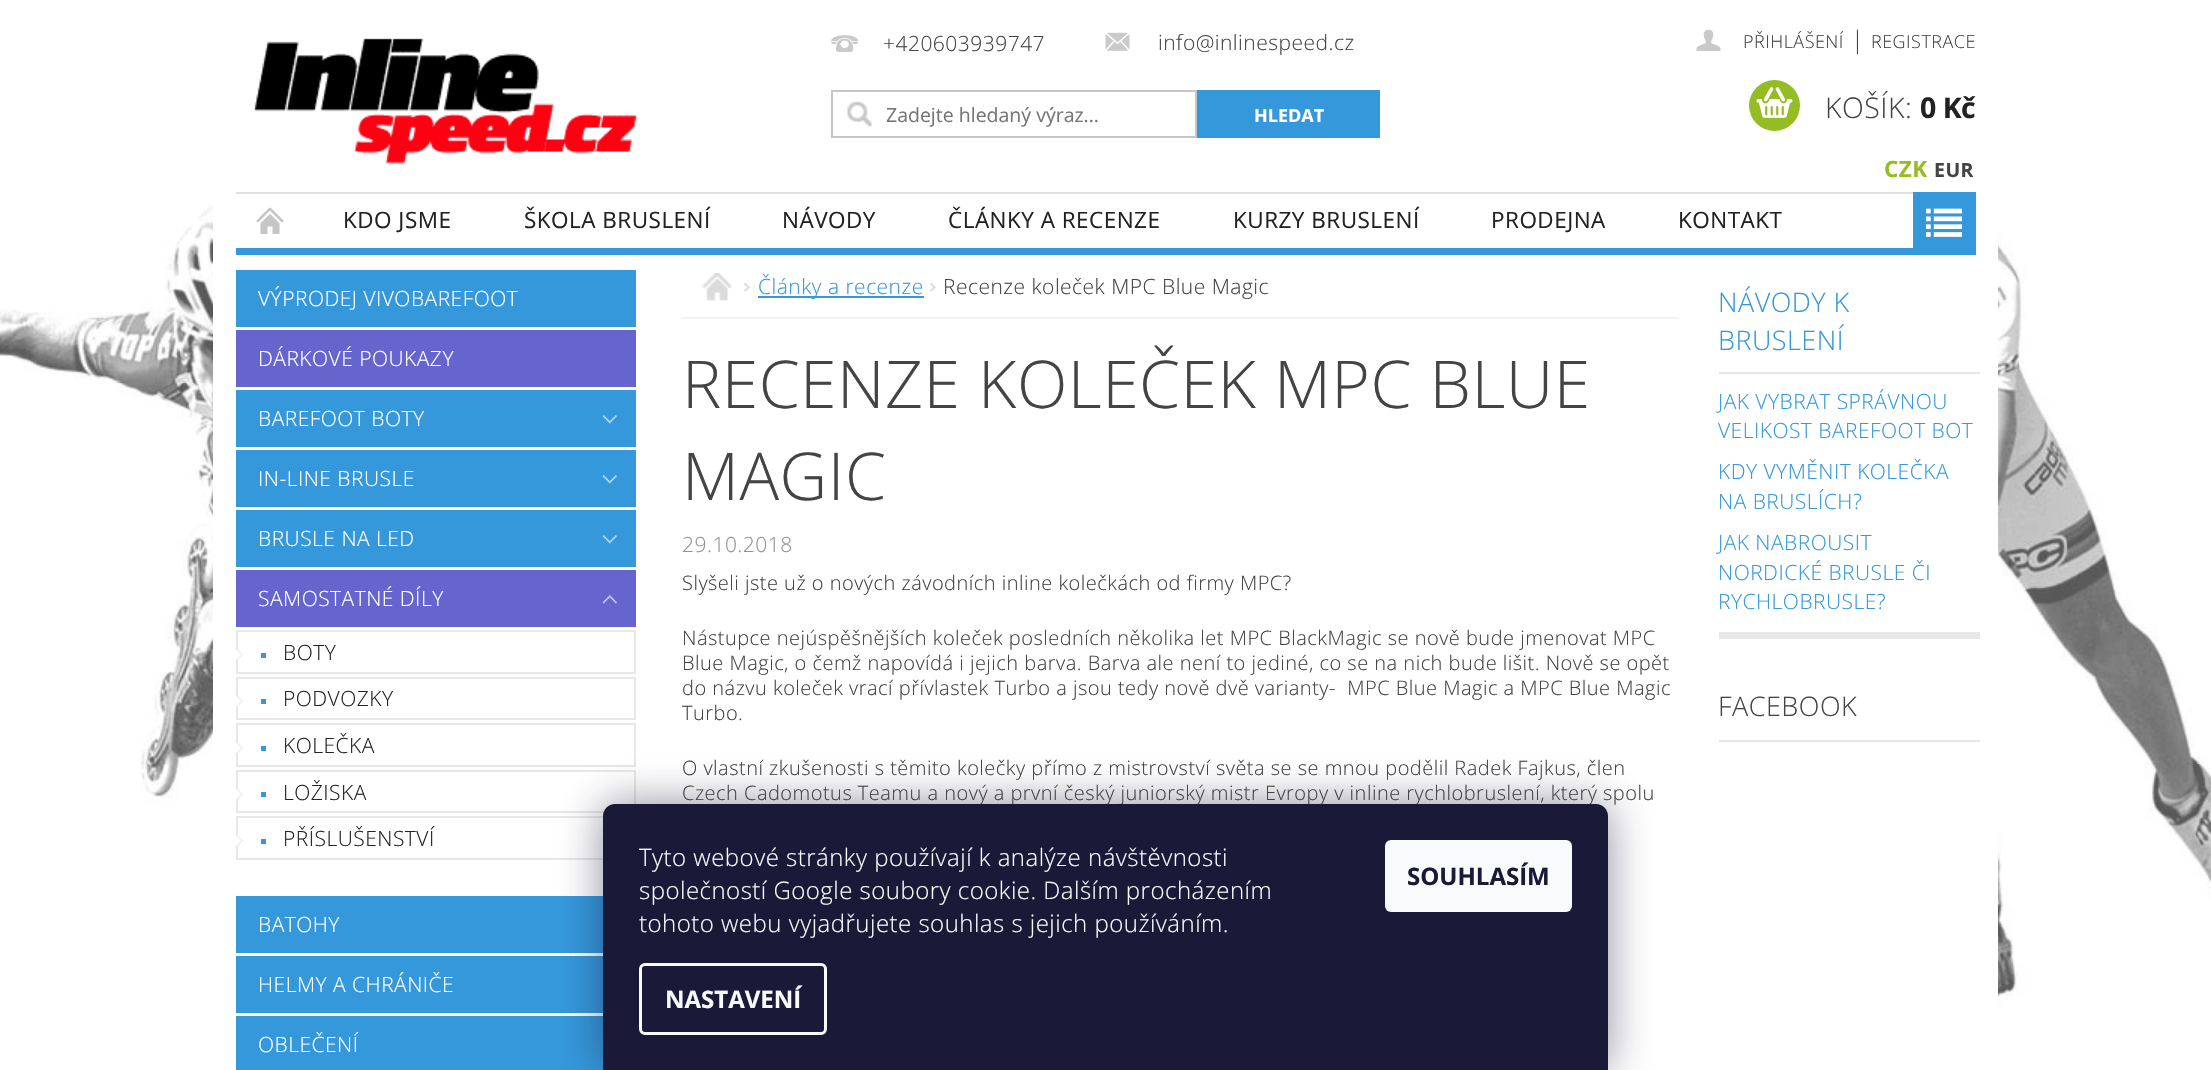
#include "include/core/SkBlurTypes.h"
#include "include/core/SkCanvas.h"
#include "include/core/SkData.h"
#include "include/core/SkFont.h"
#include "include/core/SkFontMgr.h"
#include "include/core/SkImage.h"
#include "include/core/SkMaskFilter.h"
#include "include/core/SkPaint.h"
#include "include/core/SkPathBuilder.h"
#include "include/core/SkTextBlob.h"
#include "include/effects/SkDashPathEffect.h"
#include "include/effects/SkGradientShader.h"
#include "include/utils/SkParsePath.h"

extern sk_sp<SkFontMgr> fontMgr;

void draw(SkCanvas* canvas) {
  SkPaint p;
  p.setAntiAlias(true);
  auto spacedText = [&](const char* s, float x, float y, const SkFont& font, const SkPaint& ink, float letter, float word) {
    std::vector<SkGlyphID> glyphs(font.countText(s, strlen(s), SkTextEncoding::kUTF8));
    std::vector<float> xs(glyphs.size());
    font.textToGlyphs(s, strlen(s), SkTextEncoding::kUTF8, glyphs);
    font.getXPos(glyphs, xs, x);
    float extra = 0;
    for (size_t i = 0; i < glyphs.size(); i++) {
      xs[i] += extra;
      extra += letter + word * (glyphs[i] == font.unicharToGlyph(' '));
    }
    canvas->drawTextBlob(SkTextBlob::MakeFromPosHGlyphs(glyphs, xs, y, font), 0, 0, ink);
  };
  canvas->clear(SK_ColorWHITE);
  canvas->drawImageRect(SkImages::DeferredFromEncodedData(SkData::MakeFromFileName("images/1.png")), SkRect::MakeLTRB(0, 49, 2211, 1014), SkSamplingOptions());
  p.setColor(SK_ColorWHITE);
  canvas->drawRect(SkRect::MakeLTRB(213, 49, 1998, 1014), p);
  p.setColor(SkColorSetRGB(52, 152, 219));
  canvas->drawRect(SkRect::MakeLTRB(236, 248, 1913, 255), p);
  canvas->drawImageRect(SkImages::DeferredFromEncodedData(SkData::MakeFromFileName("images/2.png")), SkRect::MakeLTRB(254, 38, 637, 164), SkSamplingOptions());
  canvas->drawImageRect(SkImages::DeferredFromEncodedData(SkData::MakeFromFileName("images/3.png")), SkRect::MakeLTRB(831, 35, 858, 52), SkSamplingOptions());
  canvas->drawImageRect(SkImages::DeferredFromEncodedData(SkData::MakeFromFileName("images/4.png")), SkRect::MakeLTRB(1105, 32, 1130, 51), SkSamplingOptions());
  canvas->drawImageRect(SkImages::DeferredFromEncodedData(SkData::MakeFromFileName("images/5.png")), SkRect::MakeLTRB(847, 101, 872, 127), SkSamplingOptions());
  p.setStyle(SkPaint::kStroke_Style);
  p.setStrokeWidth(2);
  p.setColor(SkColorSetRGB(198, 198, 198));
  canvas->drawRect(SkRect::MakeLTRB(832, 91, 1196, 137), p);
  p.setStyle(SkPaint::kFill_Style);
  p.setColor(SkColorSetRGB(52, 152, 219));
  canvas->drawRect(SkRect::MakeLTRB(1197, 90, 1380, 138), p);
  canvas->drawImageRect(SkImages::DeferredFromEncodedData(SkData::MakeFromFileName("images/6.png")), SkRect::MakeLTRB(1696, 29, 1721, 51), SkSamplingOptions());
  p.setColor(SkColorSetRGB(148, 189, 35));
  canvas->drawCircle(1774.5f, 105.5f, 25.5f, p);
  canvas->drawImageRect(SkImages::DeferredFromEncodedData(SkData::MakeFromFileName("images/7.png")), SkRect::MakeLTRB(1756, 87, 1793, 118), SkSamplingOptions());
  p.setColor(SkColorSetRGB(224, 224, 224));
  canvas->drawRect(SkRect::MakeLTRB(236, 192, 1913, 194), p);
  canvas->drawImageRect(SkImages::DeferredFromEncodedData(SkData::MakeFromFileName("images/8.png")), SkRect::MakeLTRB(256, 207, 284, 234), SkSamplingOptions());
  p.setColor(SkColorSetRGB(52, 152, 219));
  canvas->drawRect(SkRect::MakeLTRB(1913, 192, 1976, 255), p);
  canvas->drawImageRect(SkImages::DeferredFromEncodedData(SkData::MakeFromFileName("images/9.png")), SkRect::MakeLTRB(1926, 208, 1962, 237), SkSamplingOptions());
  canvas->drawRect(SkRect::MakeLTRB(236, 270, 636, 327), p);
  p.setColor(SkColorSetRGB(102, 101, 205));
  canvas->drawRect(SkRect::MakeLTRB(236, 330, 636, 387), p);
  p.setColor(SkColorSetRGB(52, 152, 219));
  canvas->drawRect(SkRect::MakeLTRB(236, 390, 636, 447), p);
  canvas->drawImageRect(SkImages::DeferredFromEncodedData(SkData::MakeFromFileName("images/10.png")), SkRect::MakeLTRB(602, 415, 617, 424), SkSamplingOptions());
  canvas->drawRect(SkRect::MakeLTRB(236, 450, 636, 507), p);
  canvas->drawImageRect(SkImages::DeferredFromEncodedData(SkData::MakeFromFileName("images/10.png")), SkRect::MakeLTRB(602, 475, 617, 484), SkSamplingOptions());
  canvas->drawRect(SkRect::MakeLTRB(236, 510, 636, 567), p);
  canvas->drawImageRect(SkImages::DeferredFromEncodedData(SkData::MakeFromFileName("images/10.png")), SkRect::MakeLTRB(602, 535, 617, 544), SkSamplingOptions());
  p.setColor(SkColorSetRGB(102, 101, 205));
  canvas->drawRect(SkRect::MakeLTRB(236, 570, 636, 627), p);
  canvas->drawImageRect(SkImages::DeferredFromEncodedData(SkData::MakeFromFileName("images/11.png")), SkRect::MakeLTRB(602, 595, 617, 604), SkSamplingOptions());
  p.setStyle(SkPaint::kStroke_Style);
  p.setColor(SkColorSetRGB(231, 231, 231));
  canvas->drawRect(SkRect::MakeLTRB(237, 631, 635, 673), p);
  canvas->drawImageRect(SkImages::DeferredFromEncodedData(SkData::MakeFromFileName("images/12.png")), SkRect::MakeLTRB(235, 648, 243, 662), SkSamplingOptions());
  p.setStyle(SkPaint::kFill_Style);
  p.setColor(SkColorSetRGB(52, 152, 219));
  canvas->drawRect(SkRect::MakeLTRB(261, 653, 266, 658), p);
  p.setStyle(SkPaint::kStroke_Style);
  p.setColor(SkColorSetRGB(231, 231, 231));
  canvas->drawRect(SkRect::MakeLTRB(237, 678, 635, 719), p);
  canvas->drawImageRect(SkImages::DeferredFromEncodedData(SkData::MakeFromFileName("images/13.png")), SkRect::MakeLTRB(235, 694, 243, 708), SkSamplingOptions());
  p.setStyle(SkPaint::kFill_Style);
  p.setColor(SkColorSetRGB(52, 152, 219));
  canvas->drawRect(SkRect::MakeLTRB(261, 699, 266, 704), p);
  p.setStyle(SkPaint::kStroke_Style);
  p.setColor(SkColorSetRGB(231, 231, 231));
  canvas->drawRect(SkRect::MakeLTRB(237, 724, 635, 766), p);
  canvas->drawImageRect(SkImages::DeferredFromEncodedData(SkData::MakeFromFileName("images/12.png")), SkRect::MakeLTRB(235, 741, 243, 755), SkSamplingOptions());
  p.setStyle(SkPaint::kFill_Style);
  p.setColor(SkColorSetRGB(52, 152, 219));
  canvas->drawRect(SkRect::MakeLTRB(261, 746, 266, 751), p);
  p.setStyle(SkPaint::kStroke_Style);
  p.setColor(SkColorSetRGB(231, 231, 231));
  canvas->drawRect(SkRect::MakeLTRB(237, 771, 635, 812), p);
  canvas->drawImageRect(SkImages::DeferredFromEncodedData(SkData::MakeFromFileName("images/13.png")), SkRect::MakeLTRB(235, 787, 243, 801), SkSamplingOptions());
  p.setStyle(SkPaint::kFill_Style);
  p.setColor(SkColorSetRGB(52, 152, 219));
  canvas->drawRect(SkRect::MakeLTRB(261, 792, 266, 797), p);
  p.setStyle(SkPaint::kStroke_Style);
  p.setColor(SkColorSetRGB(231, 231, 231));
  canvas->drawRect(SkRect::MakeLTRB(237, 817, 635, 859), p);
  canvas->drawImageRect(SkImages::DeferredFromEncodedData(SkData::MakeFromFileName("images/12.png")), SkRect::MakeLTRB(235, 834, 243, 848), SkSamplingOptions());
  p.setStyle(SkPaint::kFill_Style);
  p.setColor(SkColorSetRGB(52, 152, 219));
  canvas->drawRect(SkRect::MakeLTRB(261, 839, 266, 844), p);
  canvas->drawRect(SkRect::MakeLTRB(236, 896, 603, 953), p);
  canvas->drawRect(SkRect::MakeLTRB(236, 956, 603, 1013), p);
  canvas->drawImageRect(SkImages::DeferredFromEncodedData(SkData::MakeFromFileName("images/14.png")), SkRect::MakeLTRB(602, 981, 603, 983), SkSamplingOptions());
  canvas->drawRect(SkRect::MakeLTRB(236, 1016, 603, 1070), p);
  canvas->drawImageRect(SkImages::DeferredFromEncodedData(SkData::MakeFromFileName("images/14.png")), SkRect::MakeLTRB(602, 1041, 603, 1043), SkSamplingOptions());
  p.setColor(SkColorSetRGB(242, 242, 242));
  canvas->drawRect(SkRect::MakeLTRB(681, 317, 1679, 319), p);
  canvas->drawImageRect(SkImages::DeferredFromEncodedData(SkData::MakeFromFileName("images/15.png")), SkRect::MakeLTRB(702, 273, 732, 301), SkSamplingOptions());
  canvas->drawImageRect(SkImages::DeferredFromEncodedData(SkData::MakeFromFileName("images/16.png")), SkRect::MakeLTRB(744, 283, 751, 292), SkSamplingOptions());
  p.setColor(SkColorSetRGB(52, 152, 219));
  canvas->drawRect(SkRect::MakeLTRB(758, 296, 924, 298), p);
  canvas->drawImageRect(SkImages::DeferredFromEncodedData(SkData::MakeFromFileName("images/17.png")), SkRect::MakeLTRB(930, 283, 937, 292), SkSamplingOptions());
  p.setColor(SkColorSetRGB(231, 231, 231));
  canvas->drawRect(SkRect::MakeLTRB(1719, 632, 1980, 639), p);
  canvas->drawRect(SkRect::MakeLTRB(1719, 372, 1980, 374), p);
  canvas->drawRect(SkRect::MakeLTRB(1719, 740, 1980, 742), p);
  p.setColor(SkColorSetARGB(128, 27, 25, 57));
  p.setMaskFilter(SkMaskFilter::MakeBlur(kNormal_SkBlurStyle, 22.5f));
  canvas->drawRoundRect(SkRect::MakeLTRB(603, 804, 1608, 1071), 12, 12, p);
  p.setMaskFilter(nullptr);
  SkFont font1(fontMgr->matchFamilyStyle("Open Sans", SkFontStyle(300, SkFontStyle::kNormal_Width, SkFontStyle::kUpright_Slant)), 21);
  font1.setSubpixel(true);
  p.setColor(SkColorSetRGB(68, 68, 68));
  spacedText("+420603939747", 883, 51, font1, p, 0.48f, 0);
  spacedText("info@inlinespeed.cz", 1158, 50, font1, p, 0.48f, 0);
  canvas->save();
  canvas->clipRect(SkRect::MakeLTRB(887, 101, 1175, 128));
  SkFont font2(fontMgr->matchFamilyStyle("Open Sans", SkFontStyle::Normal()), 19.5f);
  font2.setSubpixel(true);
  p.setColor(SkColorSetRGB(117, 117, 117));
  canvas->drawString("Zadejte hledaný výraz...", 886, 122, font2, p);
  canvas->restore();
  SkFont font3(fontMgr->matchFamilyStyle("Open Sans", SkFontStyle::Bold()), 18);
  font3.setSubpixel(true);
  p.setColor(SK_ColorWHITE);
  canvas->drawString("HLEDAT", 1254, 122, font3, p);
  SkFont font4(fontMgr->matchFamilyStyle("Open Sans", SkFontStyle(300, SkFontStyle::kNormal_Width, SkFontStyle::kUpright_Slant)), 18);
  font4.setSubpixel(true);
  p.setColor(SkColorSetRGB(68, 68, 68));
  spacedText("PŘIHLÁŠENÍ", 1743, 48, font4, p, 0.48f, 0);
  SkFont font5(fontMgr->matchFamilyStyle("Open Sans", SkFontStyle(300, SkFontStyle::kNormal_Width, SkFontStyle::kUpright_Slant)), 24);
  font5.setSubpixel(true);
  spacedText("|", 1851, 48, font5, p, 0.48f, 0);
  spacedText("REGISTRACE", 1871, 48, font4, p, 0.48f, 0);
  SkFont font6(fontMgr->matchFamilyStyle("Open Sans", SkFontStyle(300, SkFontStyle::kNormal_Width, SkFontStyle::kUpright_Slant)), 28.5f);
  font6.setSubpixel(true);
  spacedText("KOŠÍK:", 1825, 118, font6, p, 0.48f, 0);
  SkFont font7(fontMgr->matchFamilyStyle("Open Sans", SkFontStyle::Bold()), 28.5f);
  font7.setSubpixel(true);
  p.setColor(SkColorSetRGB(34, 34, 34));
  spacedText("0 Kč", 1920, 118, font7, p, -0.5f, 0);
  SkFont font8(fontMgr->matchFamilyStyle("Open Sans", SkFontStyle::Bold()), 22.5f);
  font8.setSubpixel(true);
  p.setColor(SkColorSetRGB(148, 189, 35));
  spacedText("CZK", 1884, 177, font8, p, 0.48f, 0);
  SkFont font9(fontMgr->matchFamilyStyle("Open Sans", SkFontStyle::Bold()), 19.5f);
  font9.setSubpixel(true);
  p.setColor(SkColorSetRGB(68, 68, 68));
  spacedText("EUR", 1934, 177, font9, p, 0.48f, 0);
  SkFont font10(fontMgr->matchFamilyStyle("Open Sans", SkFontStyle::Normal()), 22.5f);
  font10.setSubpixel(true);
  p.setColor(SkColorSetRGB(34, 34, 34));
  spacedText("KDO JSME", 343, 228, font10, p, 0.48f, 0);
  spacedText("ŠKOLA BRUSLENÍ", 524, 228, font10, p, 0.48f, 0);
  spacedText("NÁVODY", 782, 228, font10, p, 0.48f, 0);
  spacedText("ČLÁNKY A RECENZE", 948, 228, font10, p, 0.48f, 0);
  spacedText("KURZY BRUSLENÍ", 1233, 228, font10, p, 0.48f, 0);
  spacedText("PRODEJNA", 1491, 228, font10, p, 0.48f, 0);
  spacedText("KONTAKT", 1678, 228, font10, p, 0.48f, 0);
  p.setColor(SK_ColorWHITE);
  spacedText("VÝPRODEJ VIVOBAREFOOT", 258, 306, font1, p, 0.48f, 0);
  spacedText("DÁRKOVÉ POUKAZY", 258, 366, font1, p, 0.48f, 0);
  spacedText("BAREFOOT BOTY", 258, 426, font1, p, 0.48f, 0);
  spacedText("IN-LINE BRUSLE", 258, 486, font1, p, 0.48f, 0);
  spacedText("BRUSLE NA LED", 258, 546, font1, p, 0.48f, 0);
  spacedText("SAMOSTATNÉ DÍLY", 258, 606, font1, p, 0.48f, 0);
  p.setColor(SkColorSetRGB(34, 34, 34));
  spacedText("BOTY", 283, 660, font1, p, 0.48f, 0);
  spacedText("PODVOZKY", 283, 706, font1, p, 0.48f, 0);
  spacedText("KOLEČKA", 283, 753, font1, p, 0.48f, 0);
  spacedText("LOŽISKA", 283, 800, font1, p, 0.48f, 0);
  spacedText("PŘÍSLUŠENSTVÍ", 283, 846, font1, p, 0.48f, 0);
  p.setColor(SK_ColorWHITE);
  spacedText("BATOHY", 258, 932, font1, p, 0.48f, 0);
  spacedText("HELMY A CHRÁNIČE", 258, 992, font1, p, 0.48f, 0);
  spacedText("OBLEČENÍ", 258, 1052, font1, p, 0.48f, 0);
  p.setColor(SkColorSetRGB(52, 152, 219));
  spacedText("Články a recenze", 758, 294, font1, p, 0.48f, 0);
  p.setColor(SkColorSetRGB(68, 68, 68));
  spacedText("Recenze koleček MPC Blue Magic", 943, 294, font1, p, 0.48f, 0);
  SkFont font11(fontMgr->matchFamilyStyle("Open Sans", SkFontStyle(300, SkFontStyle::kNormal_Width, SkFontStyle::kUpright_Slant)), 66);
  font11.setSubpixel(true);
  spacedText("RECENZE KOLEČEK MPC BLUE", 682, 408, font11, p, 0.48f, 0);
  spacedText("MAGIC", 682, 500, font11, p, 0.48f, 0);
  p.setColor(SkColorSetRGB(147, 147, 147));
  spacedText("29.10.2018", 682, 552, font1, p, 0.48f, 0);
  SkFont font12(fontMgr->matchFamilyStyle("Open Sans", SkFontStyle(300, SkFontStyle::kNormal_Width, SkFontStyle::kUpright_Slant)), 20);
  font12.setSubpixel(true);
  p.setColor(SkColorSetRGB(68, 68, 68));
  spacedText("Slyšeli jste už o nových závodních inline kolečkách od firmy MPC?", 682, 590, font12, p, 0.48f, 0);
  spacedText("Nástupce nejúspěšnějších koleček posledních několika let MPC BlackMagic se nově bude jmenovat MPC", 682, 645, font12, p, 0.48f, 0);
  spacedText("Blue Magic, o čemž napovídá i jejich barva. Barva ale není to jediné, co se na nich bude lišit. Nově se opět", 682, 670, font12, p, 0.48f, 0);
  spacedText("do názvu koleček vrací přívlastek Turbo a jsou tedy nově dvě varianty-  MPC Blue Magic a MPC Blue Magic", 682, 695, font12, p, 0.48f, 0);
  spacedText("Turbo.", 682, 720, font12, p, 0.48f, 0);
  spacedText("O vlastní zkušenosti s těmito kolečky přímo z mistrovství světa se se mnou podělil Radek Fajkus, člen", 682, 775, font12, p, 0.48f, 0);
  spacedText("Czech Cadomotus Teamu a nový a první český juniorský mistr Evropy v inline rychlobruslení, který spolu", 682, 800, font12, p, 0.48f, 0);
  SkFont font13(fontMgr->matchFamilyStyle("Open Sans", SkFontStyle(300, SkFontStyle::kNormal_Width, SkFontStyle::kUpright_Slant)), 27);
  font13.setSubpixel(true);
  p.setColor(SkColorSetRGB(52, 152, 219));
  spacedText("NÁVODY K", 1718, 312, font13, p, 0.48f, 0);
  spacedText("BRUSLENÍ", 1718, 350, font13, p, 0.48f, 0);
  spacedText("JAK VYBRAT SPRÁVNOU", 1718, 409, font1, p, 0.48f, 0);
  spacedText("VELIKOST BAREFOOT BOT", 1718, 438, font1, p, 0.48f, 0);
  spacedText("KDY VYMĚNIT KOLEČKA", 1718, 479, font1, p, 0.48f, 0);
  spacedText("NA BRUSLÍCH?", 1718, 509, font1, p, 0.48f, 0);
  spacedText("JAK NABROUSIT", 1718, 550, font1, p, 0.48f, 0);
  spacedText("NORDICKÉ BRUSLE ČI", 1718, 580, font1, p, 0.48f, 0);
  spacedText("RYCHLOBRUSLE?", 1718, 609, font1, p, 0.48f, 0);
  p.setColor(SkColorSetRGB(68, 68, 68));
  spacedText("FACEBOOK", 1718, 716, font13, p, 0.48f, 0);
  p.setColor(SkColorSetRGB(26, 25, 55));
  canvas->drawPath(SkPathBuilder().moveTo(615, 804).lineTo(1596, 804).cubicTo(1602.5f, 804, 1608, 809.5f, 1608, 816).lineTo(1608, 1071).lineTo(603, 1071).lineTo(603, 816).cubicTo(603, 809.5f, 608.5f, 804, 615, 804).close().detach(), p);
  p.setColor(SkColorSetRGB(248, 250, 251));
  spacedText("Tyto webové stránky používají k analýze návštěvnosti", 639, 866, font5, p, 0.48f, 0);
  spacedText("společností Google soubory cookie. Dalším procházením", 639, 899, font5, p, 0.48f, 0);
  spacedText("tohoto webu vyjadřujete souhlas s jejich používáním.", 639, 932, font5, p, 0.48f, 0);
  p.setStyle(SkPaint::kStroke_Style);
  p.setStrokeWidth(3);
  canvas->drawRoundRect(SkRect::MakeLTRB(640.5f, 964.5f, 825.5f, 1033.5f), 4.5f, 4.5f, p);
  SkFont font14(fontMgr->matchFamilyStyle("Open Sans", SkFontStyle::Bold()), 24);
  font14.setSubpixel(true);
  p.setStyle(SkPaint::kFill_Style);
  canvas->drawString("NASTAVENÍ", 665, 1008, font14, p);
  canvas->drawRoundRect(SkRect::MakeLTRB(1385, 840, 1572, 912), 6, 6, p);
  p.setColor(SkColorSetRGB(26, 25, 55));
  canvas->drawString("SOUHLASÍM", 1407, 885, font14, p);
}
